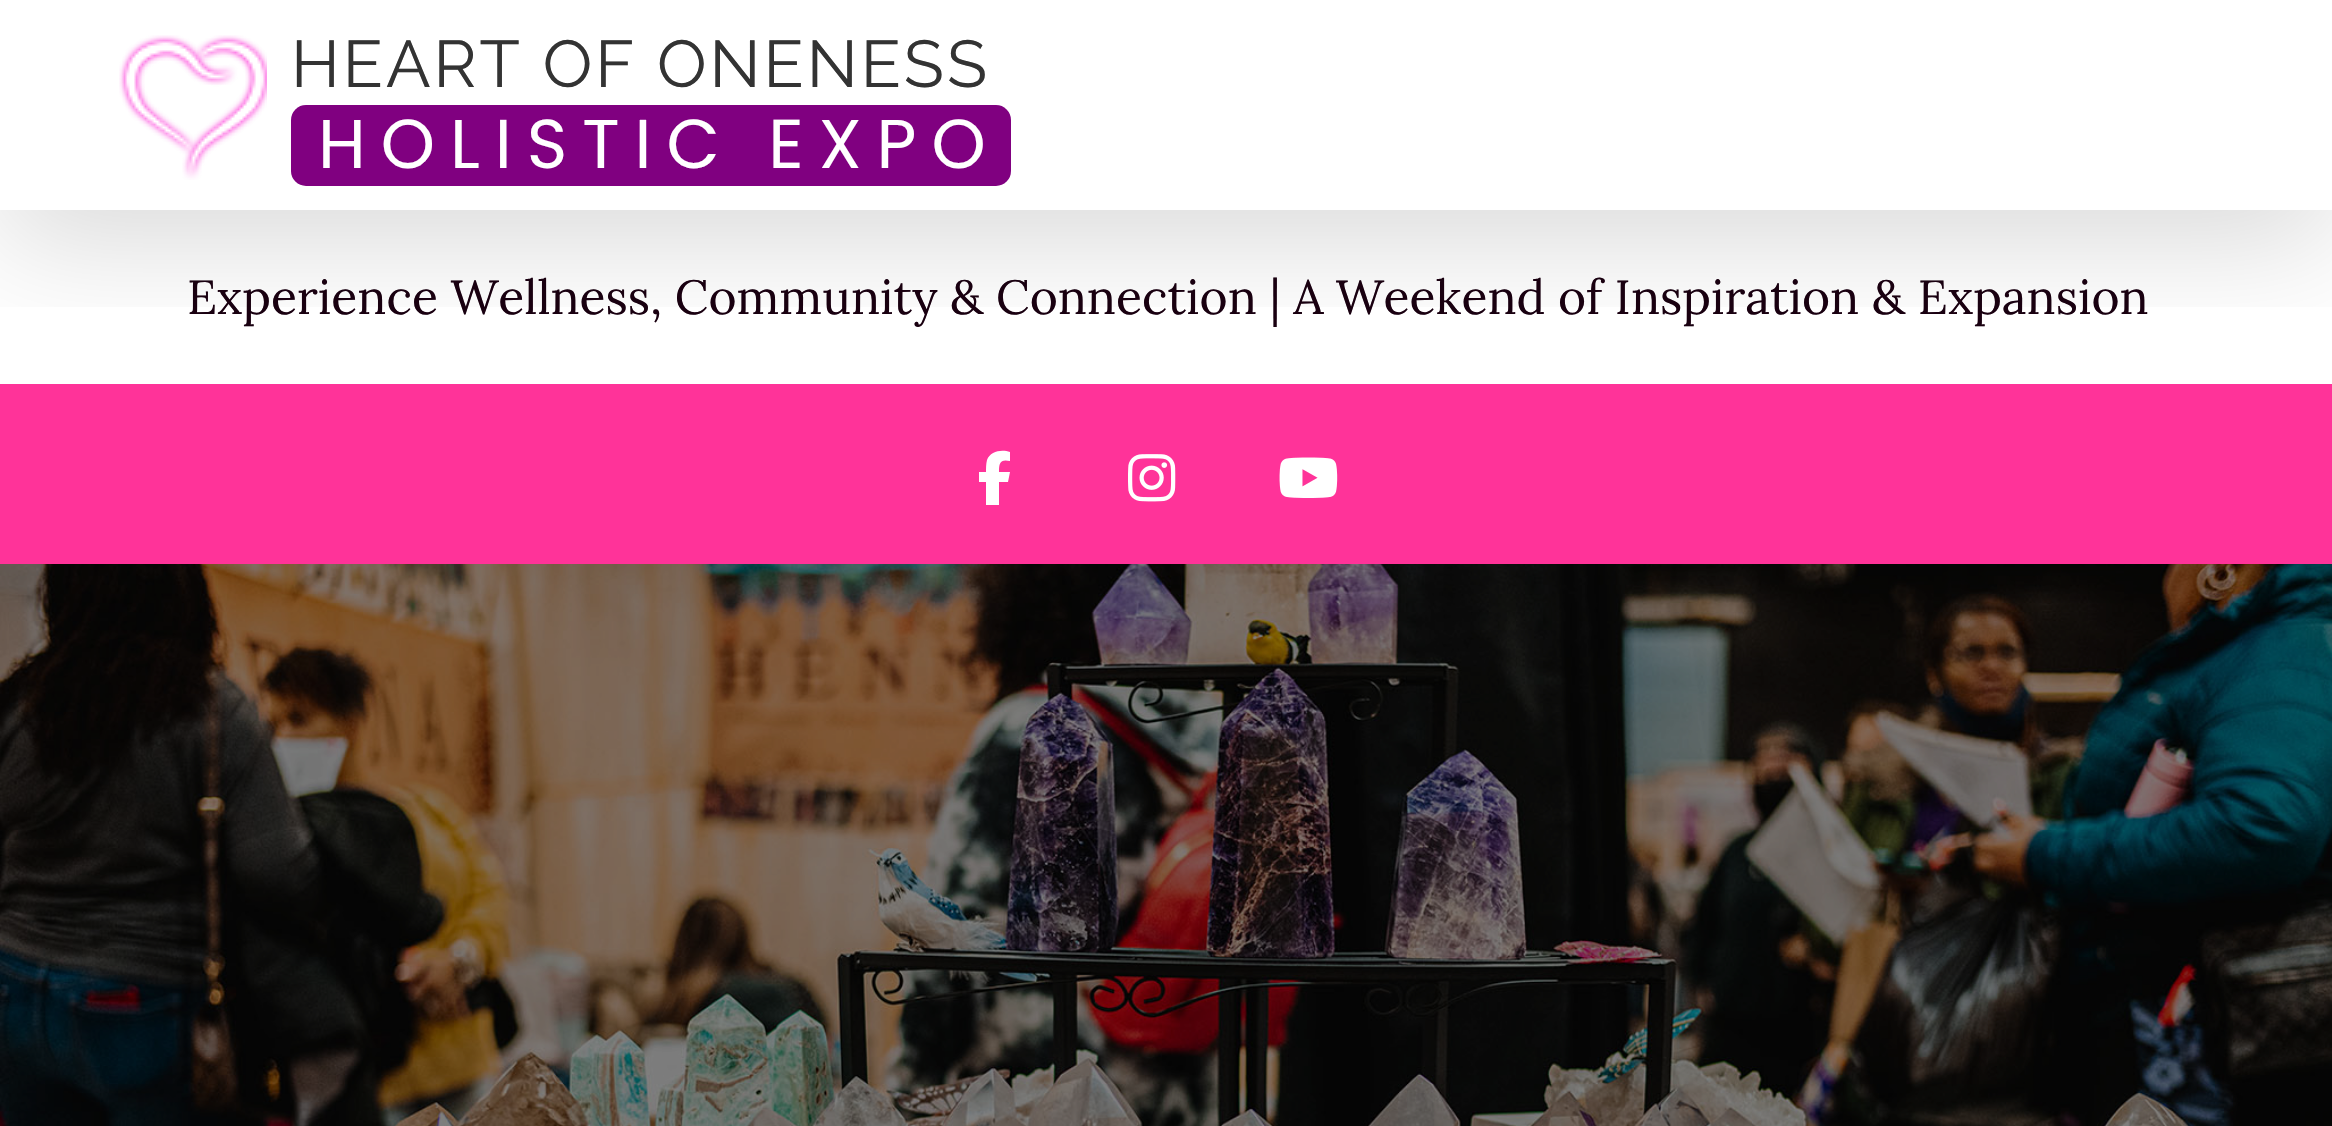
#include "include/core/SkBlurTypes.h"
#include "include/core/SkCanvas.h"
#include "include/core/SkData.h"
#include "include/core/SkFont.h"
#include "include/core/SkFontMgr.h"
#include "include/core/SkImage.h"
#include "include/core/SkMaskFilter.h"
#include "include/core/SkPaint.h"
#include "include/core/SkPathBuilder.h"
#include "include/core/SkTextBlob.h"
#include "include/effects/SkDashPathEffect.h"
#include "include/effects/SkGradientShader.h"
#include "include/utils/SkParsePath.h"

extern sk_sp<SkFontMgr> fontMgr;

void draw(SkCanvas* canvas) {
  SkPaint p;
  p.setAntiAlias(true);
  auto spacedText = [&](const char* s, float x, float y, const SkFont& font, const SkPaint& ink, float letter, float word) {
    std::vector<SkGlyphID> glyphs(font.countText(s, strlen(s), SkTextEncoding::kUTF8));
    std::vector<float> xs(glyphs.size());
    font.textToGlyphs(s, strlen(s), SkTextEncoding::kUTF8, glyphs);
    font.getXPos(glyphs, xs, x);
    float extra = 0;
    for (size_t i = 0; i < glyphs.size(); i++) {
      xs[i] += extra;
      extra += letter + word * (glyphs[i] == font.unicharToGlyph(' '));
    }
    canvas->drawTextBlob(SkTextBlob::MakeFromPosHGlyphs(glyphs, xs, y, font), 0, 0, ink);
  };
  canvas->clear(SK_ColorWHITE);
  p.setColor(SkColorSetRGB(255, 51, 153));
  canvas->drawRect(SkRect::MakeLTRB(0, 384, 2332, 564), p);
  canvas->save();
  canvas->clipRect(SkRect::MakeLTRB(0, 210, 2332, 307));
  p.setColor(SkColorSetARGB(38, 0, 0, 0));
  p.setMaskFilter(SkMaskFilter::MakeBlur(kNormal_SkBlurStyle, 60));
  canvas->drawRect(SkRect::MakeLTRB(0, 30, 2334, 240), p);
  p.setMaskFilter(nullptr);
  canvas->restore();
  canvas->drawImageRect(SkImages::DeferredFromEncodedData(SkData::MakeFromFileName("images/1.png")), SkRect::MakeLTRB(119, 35, 267, 180), SkSamplingOptions());
  p.setColor(SkColorSetRGB(128, 0, 128));
  canvas->drawRoundRect(SkRect::MakeLTRB(291, 105, 1011, 186), 15, 15, p);
  p.setColor(SK_ColorWHITE);
  canvas->drawPath(SkPathBuilder().moveTo(986, 482).lineTo(986, 505).lineTo(986, 482).lineTo(986, 505).lineTo(999, 505).lineTo(999, 482).lineTo(1008, 482).lineTo(1010, 472).lineTo(999, 472).cubicTo(999, 463, 1000, 459, 1010, 461).lineTo(1010, 452).cubicTo(1002, 449, 990, 451, 987, 460).cubicTo(986, 464, 986, 468, 986, 472).lineTo(979, 472).lineTo(979, 482).close().detach(), p);
  canvas->drawImageRect(SkImages::DeferredFromEncodedData(SkData::MakeFromFileName("images/2.png")), SkRect::MakeLTRB(1128, 454, 1176, 502), SkSamplingOptions());
  canvas->drawImageRect(SkImages::DeferredFromEncodedData(SkData::MakeFromFileName("images/3.png")), SkRect::MakeLTRB(1279, 457, 1338, 498), SkSamplingOptions());
  canvas->drawImageRect(SkImages::DeferredFromEncodedData(SkData::MakeFromFileName("images/4.png")), SkRect::MakeLTRB(0, 564, 2332, 1126), SkSamplingOptions());
  SkFont font1(fontMgr->matchFamilyStyle("Raleway", SkFontStyle::Normal()), 66);
  font1.setSubpixel(true);
  p.setColor(SkColorSetRGB(51, 51, 51));
  spacedText("HEART OF ONENESS", 291, 87, font1, p, 3, 0);
  SkFont font2(fontMgr->matchFamilyStyle("Poppins", SkFontStyle::Normal()), 69);
  font2.setSubpixel(true);
  p.setColor(SK_ColorWHITE);
  spacedText("HOLISTIC EXPO", 318, 168, font2, p, 15, 0);
  SkFont font3(fontMgr->matchFamilyStyle("Lora", SkFontStyle::Normal()), 48);
  font3.setSubpixel(true);
  p.setColor(SkColorSetRGB(25, 0, 16));
  canvas->drawString("Experience Wellness, Community & Connection | A Weekend of Inspiration & Expansion", 187, 314, font3, p);
}
